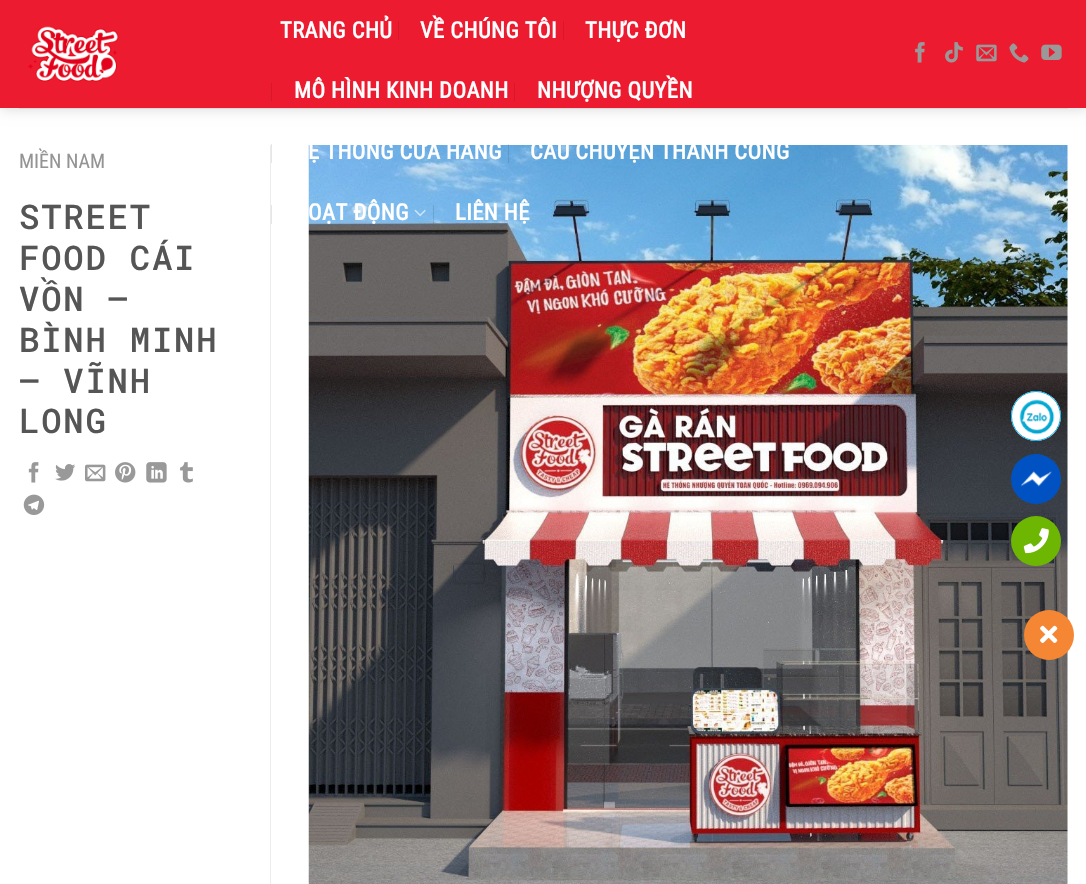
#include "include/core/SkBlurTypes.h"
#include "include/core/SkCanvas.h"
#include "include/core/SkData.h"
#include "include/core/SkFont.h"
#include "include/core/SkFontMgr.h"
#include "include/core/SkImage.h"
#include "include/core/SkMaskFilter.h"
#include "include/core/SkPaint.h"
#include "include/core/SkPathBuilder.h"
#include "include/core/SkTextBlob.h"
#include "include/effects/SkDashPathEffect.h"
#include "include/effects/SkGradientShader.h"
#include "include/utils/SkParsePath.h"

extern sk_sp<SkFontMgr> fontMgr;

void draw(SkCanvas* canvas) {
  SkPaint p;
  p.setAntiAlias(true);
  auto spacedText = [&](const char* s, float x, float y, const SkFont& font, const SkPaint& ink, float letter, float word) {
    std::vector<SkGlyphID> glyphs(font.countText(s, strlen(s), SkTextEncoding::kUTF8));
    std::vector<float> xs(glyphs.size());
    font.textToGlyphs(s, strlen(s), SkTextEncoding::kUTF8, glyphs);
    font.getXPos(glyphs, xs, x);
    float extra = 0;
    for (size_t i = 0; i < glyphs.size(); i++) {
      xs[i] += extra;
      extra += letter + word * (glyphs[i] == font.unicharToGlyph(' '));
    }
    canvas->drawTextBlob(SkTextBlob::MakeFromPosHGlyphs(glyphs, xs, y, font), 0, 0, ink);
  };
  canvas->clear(SK_ColorWHITE);
  p.setColor(SkColorSetARGB(38, 0, 0, 0));
  p.setMaskFilter(SkMaskFilter::MakeBlur(kNormal_SkBlurStyle, 6));
  canvas->drawRect(SkRect::MakeLTRB(1, 1, 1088, 109), p);
  p.setMaskFilter(nullptr);
  p.setColor(SkColorSetRGB(237, 27, 47));
  canvas->drawRect(SkRect::MakeLTRB(0, 0, 1086, 108), p);
  canvas->drawImageRect(SkImages::DeferredFromEncodedData(SkData::MakeFromFileName("images/1.png")), SkRect::MakeLTRB(27, 26, 119, 82), SkSamplingOptions());
  p.setColor(SkColorSetRGB(213, 24, 42));
  canvas->drawRect(SkRect::MakeLTRB(398, 21, 399, 40), p);
  canvas->drawRect(SkRect::MakeLTRB(563, 21, 564, 40), p);
  canvas->drawRect(SkRect::MakeLTRB(271, 83, 272, 101), p);
  canvas->drawRect(SkRect::MakeLTRB(514, 83, 515, 101), p);
  p.setColor(SkColorSetRGB(230, 230, 230));
  canvas->drawRect(SkRect::MakeLTRB(271, 144, 272, 163), p);
  canvas->drawImageRect(SkImages::DeferredFromEncodedData(SkData::MakeFromFileName("images/15.png")), SkRect::MakeLTRB(308, 145, 1068, 884), SkSamplingOptions());
  p.setColor(SkColorSetARGB(26, 0, 0, 0));
  canvas->drawRect(SkRect::MakeLTRB(508, 144, 509, 163), p);
  p.setColor(SkColorSetRGB(230, 230, 230));
  canvas->drawRect(SkRect::MakeLTRB(271, 205, 272, 224), p);
  canvas->drawImageRect(SkImages::DeferredFromEncodedData(SkData::MakeFromFileName("images/2.png")), SkRect::MakeLTRB(414, 209, 426, 217), SkSamplingOptions());
  p.setColor(SkColorSetARGB(26, 0, 0, 0));
  canvas->drawRect(SkRect::MakeLTRB(433, 205, 434, 224), p);
  canvas->drawImageRect(SkImages::DeferredFromEncodedData(SkData::MakeFromFileName("images/3.png")), SkRect::MakeLTRB(915, 42, 925, 63), SkSamplingOptions());
  canvas->drawImageRect(SkImages::DeferredFromEncodedData(SkData::MakeFromFileName("images/4.png")), SkRect::MakeLTRB(945, 42, 963, 63), SkSamplingOptions());
  canvas->drawImageRect(SkImages::DeferredFromEncodedData(SkData::MakeFromFileName("images/5.png")), SkRect::MakeLTRB(976, 44, 997, 62), SkSamplingOptions());
  canvas->drawImageRect(SkImages::DeferredFromEncodedData(SkData::MakeFromFileName("images/6.png")), SkRect::MakeLTRB(1009, 43, 1029, 63), SkSamplingOptions());
  canvas->drawImageRect(SkImages::DeferredFromEncodedData(SkData::MakeFromFileName("images/7.png")), SkRect::MakeLTRB(1041, 44, 1062, 60), SkSamplingOptions());
  p.setColor(SkColorSetRGB(216, 217, 219));
  canvas->drawRect(SkRect::MakeLTRB(19, 108, 1068, 109), p);
  p.setColor(SkColorSetRGB(236, 236, 236));
  canvas->drawRect(SkRect::MakeLTRB(270, 145, 271, 884), p);
  canvas->drawImageRect(SkImages::DeferredFromEncodedData(SkData::MakeFromFileName("images/8.png")), SkRect::MakeLTRB(28, 462, 39, 483), SkSamplingOptions());
  canvas->drawImageRect(SkImages::DeferredFromEncodedData(SkData::MakeFromFileName("images/9.png")), SkRect::MakeLTRB(55, 464, 76, 481), SkSamplingOptions());
  canvas->drawImageRect(SkImages::DeferredFromEncodedData(SkData::MakeFromFileName("images/10.png")), SkRect::MakeLTRB(85, 464, 106, 482), SkSamplingOptions());
  canvas->drawImageRect(SkImages::DeferredFromEncodedData(SkData::MakeFromFileName("images/11.png")), SkRect::MakeLTRB(115, 462, 136, 483), SkSamplingOptions());
  canvas->drawImageRect(SkImages::DeferredFromEncodedData(SkData::MakeFromFileName("images/12.png")), SkRect::MakeLTRB(146, 462, 167, 483), SkSamplingOptions());
  canvas->drawImageRect(SkImages::DeferredFromEncodedData(SkData::MakeFromFileName("images/13.png")), SkRect::MakeLTRB(180, 462, 193, 483), SkSamplingOptions());
  canvas->drawImageRect(SkImages::DeferredFromEncodedData(SkData::MakeFromFileName("images/14.png")), SkRect::MakeLTRB(23, 494, 45, 515), SkSamplingOptions());
  p.setColor(SK_ColorWHITE);
  canvas->drawCircle(1036, 416, 25, p);
  canvas->drawImageRect(SkImages::DeferredFromEncodedData(SkData::MakeFromFileName("images/16.png")), SkRect::MakeLTRB(1019, 399, 1055, 435), SkSamplingOptions());
  p.setStyle(SkPaint::kStroke_Style);
  p.setStrokeWidth(1);
  p.setColor(SkColorSetRGB(0, 175, 238));
  canvas->drawCircle(1036, 416, 24.5f, p);
  p.setStyle(SkPaint::kFill_Style);
  p.setColor(SkColorSetRGB(0, 82, 194));
  canvas->drawCircle(1036, 479, 25, p);
  canvas->drawImageRect(SkImages::DeferredFromEncodedData(SkData::MakeFromFileName("images/17.png")), SkRect::MakeLTRB(1021, 471, 1052, 487), SkSamplingOptions());
  p.setColor(SkColorSetRGB(109, 183, 3));
  canvas->drawCircle(1036, 541, 25, p);
  canvas->drawImageRect(SkImages::DeferredFromEncodedData(SkData::MakeFromFileName("images/18.png")), SkRect::MakeLTRB(1023, 528, 1049, 554), SkSamplingOptions());
  p.setColor(SkColorSetRGB(245, 134, 52));
  canvas->drawCircle(1049, 635, 25, p);
  canvas->drawImageRect(SkImages::DeferredFromEncodedData(SkData::MakeFromFileName("images/19.png")), SkRect::MakeLTRB(1040, 625, 1058, 643), SkSamplingOptions());
  SkFont font1(fontMgr->matchFamilyStyle("Roboto Condensed", SkFontStyle::Bold()), 22.5f);
  font1.setSubpixel(true);
  p.setColor(SK_ColorWHITE);
  spacedText("TRANG CHỦ", 280, 38, font1, p, 0.45f, 0);
  spacedText("VỀ CHÚNG TÔI", 420, 38, font1, p, 0.45f, 0);
  spacedText("THỰC ĐƠN", 585, 38, font1, p, 0.45f, 0);
  spacedText("MÔ HÌNH KINH DOANH", 294, 98, font1, p, 0.45f, 0);
  spacedText("NHƯỢNG QUYỀN", 537, 98, font1, p, 0.45f, 0);
  spacedText("Ệ THỐNG CỬA HÀNG", 308, 159, font1, p, 0.45f, 0);
  spacedText("CÂU CHUYỆN THÀNH CÔNG", 530, 159, font1, p, 0.45f, 0);
  spacedText("OẠT ĐỘNG", 308, 220, font1, p, 0.45f, 0);
  spacedText("LIÊN HỆ", 455, 220, font1, p, 0.45f, 0);
  SkFont font2(fontMgr->matchFamilyStyle("Roboto Condensed", SkFontStyle::Normal()), 20);
  font2.setSubpixel(true);
  p.setColor(SkColorSetRGB(148, 148, 148));
  canvas->drawString("MIỀN NAM", 19, 168, font2, p);
  SkFont font3(fontMgr->matchFamilyStyle("Roboto Mono", SkFontStyle(500, SkFontStyle::kNormal_Width, SkFontStyle::kUpright_Slant)), 34);
  font3.setSubpixel(true);
  p.setColor(SkColorSetRGB(85, 85, 85));
  spacedText("STREET", 19, 229, font3, p, 1.75f, 0);
  spacedText("FOOD CÁI", 19, 270, font3, p, 1.75f, 0);
  spacedText("VỒN –", 19, 311, font3, p, 1.75f, 0);
  spacedText("BÌNH MINH", 19, 352, font3, p, 1.75f, 0);
  spacedText("– VĨNH", 19, 393, font3, p, 1.75f, 0);
  spacedText("LONG", 19, 433, font3, p, 1.75f, 0);
}
